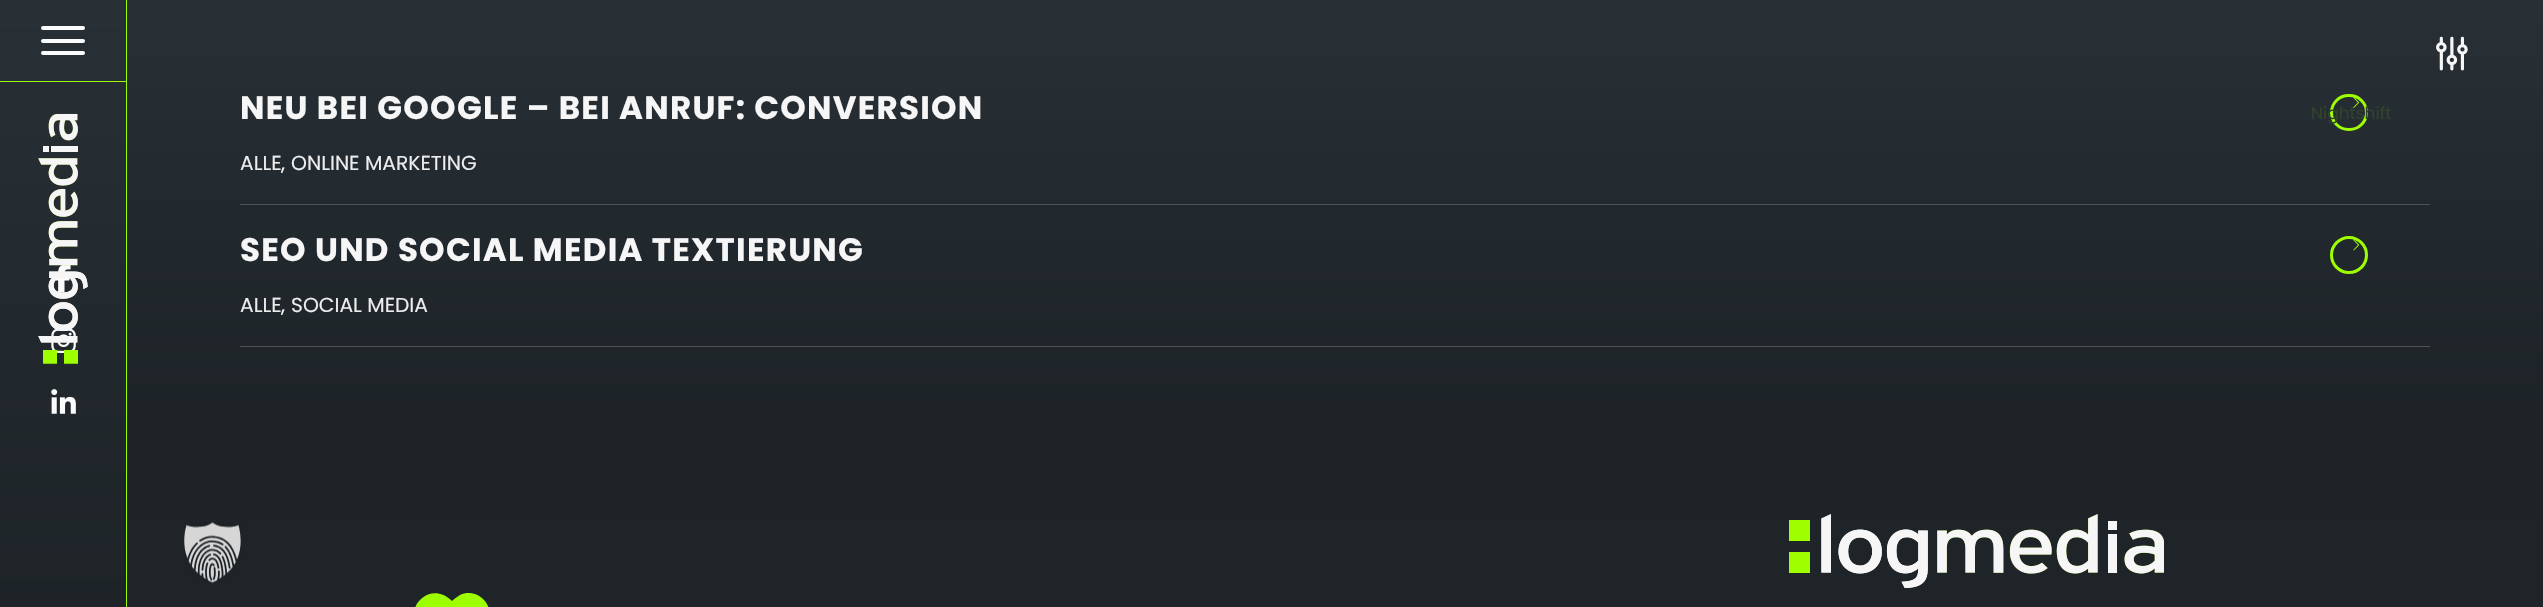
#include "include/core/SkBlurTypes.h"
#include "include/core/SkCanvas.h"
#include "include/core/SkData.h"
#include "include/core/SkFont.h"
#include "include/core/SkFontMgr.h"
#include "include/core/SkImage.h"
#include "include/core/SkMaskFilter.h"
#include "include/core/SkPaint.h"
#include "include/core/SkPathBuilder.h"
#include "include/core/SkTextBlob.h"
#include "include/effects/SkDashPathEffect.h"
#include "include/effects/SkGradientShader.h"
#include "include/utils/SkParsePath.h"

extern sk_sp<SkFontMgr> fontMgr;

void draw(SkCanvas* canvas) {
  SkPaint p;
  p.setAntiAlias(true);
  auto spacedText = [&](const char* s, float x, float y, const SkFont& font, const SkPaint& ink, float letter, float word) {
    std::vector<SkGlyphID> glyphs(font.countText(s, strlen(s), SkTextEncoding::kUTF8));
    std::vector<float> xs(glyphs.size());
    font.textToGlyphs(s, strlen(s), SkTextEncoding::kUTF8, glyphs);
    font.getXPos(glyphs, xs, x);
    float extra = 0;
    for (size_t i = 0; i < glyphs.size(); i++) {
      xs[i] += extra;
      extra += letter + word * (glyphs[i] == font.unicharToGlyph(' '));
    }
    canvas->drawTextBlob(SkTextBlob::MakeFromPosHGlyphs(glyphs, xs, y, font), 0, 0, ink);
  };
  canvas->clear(SK_ColorWHITE);
  {
    const SkColor colors[] = {SkColorSetRGB(40, 48, 54), SkColorSetRGB(29, 35, 39)};
    const float stops[] = {0, 1};
    const SkPoint ends[] = {{63, 0}, {63, 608}};
    p.setShader(SkGradientShader::MakeLinear(ends, colors, stops, 2, SkTileMode::kClamp));
    p.setAlpha(255);
  }
  canvas->drawRect(SkRect::MakeLTRB(0, 0, 128, 607), p);
  p.setShader(nullptr);
  p.setColor(SkColorSetRGB(158, 255, 0));
  canvas->drawRect(SkRect::MakeLTRB(126, 0, 127, 607), p);
  canvas->drawRect(SkRect::MakeLTRB(0, 81, 126, 82), p);
  p.setColor(SkColorSetRGB(251, 251, 251));
  canvas->drawRoundRect(SkRect::MakeLTRB(41, 39, 85, 43), 2, 2, p);
  canvas->drawRoundRect(SkRect::MakeLTRB(41, 26, 85, 30), 2, 2, p);
  canvas->drawRoundRect(SkRect::MakeLTRB(41, 51, 85, 55), 2, 2, p);
  canvas->drawImageRect(SkImages::DeferredFromEncodedData(SkData::MakeFromFileName("images/2.png")), SkRect::MakeLTRB(55, 265, 71, 293), SkSamplingOptions());
  canvas->drawImageRect(SkImages::DeferredFromEncodedData(SkData::MakeFromFileName("images/3.png")), SkRect::MakeLTRB(51, 328, 76, 353), SkSamplingOptions());
  canvas->drawImageRect(SkImages::DeferredFromEncodedData(SkData::MakeFromFileName("images/1.png")), SkRect::MakeLTRB(38, 113, 88, 364), SkSamplingOptions());
  canvas->drawImageRect(SkImages::DeferredFromEncodedData(SkData::MakeFromFileName("images/4.png")), SkRect::MakeLTRB(51, 389, 76, 414), SkSamplingOptions());
  {
    const SkColor colors[] = {SkColorSetRGB(40, 48, 54), SkColorSetRGB(29, 35, 39)};
    const float stops[] = {0, 1};
    const SkPoint ends[] = {{1336, 0}, {1336, 410}};
    p.setShader(SkGradientShader::MakeLinear(ends, colors, stops, 2, SkTileMode::kClamp));
    p.setAlpha(255);
  }
  canvas->drawRect(SkRect::MakeLTRB(128, 0, 2543, 410), p);
  p.setShader(nullptr);
  p.setColor(SkColorSetRGB(81, 82, 84));
  canvas->drawRect(SkRect::MakeLTRB(240, 204, 2430, 205), p);
  p.setStyle(SkPaint::kStroke_Style);
  p.setStrokeWidth(3);
  p.setColor(SkColorSetRGB(157, 255, 0));
  canvas->drawRoundRect(SkRect::MakeLTRB(2331.5f, 95.5f, 2366.5f, 129.5f), 17, 17, p);
  canvas->drawImageRect(SkImages::DeferredFromEncodedData(SkData::MakeFromFileName("images/5.png")), SkRect::MakeLTRB(2353, 97, 2360, 108), SkSamplingOptions());
  p.setStyle(SkPaint::kFill_Style);
  p.setColor(SkColorSetRGB(81, 82, 84));
  canvas->drawRect(SkRect::MakeLTRB(240, 346, 2430, 347), p);
  p.setStyle(SkPaint::kStroke_Style);
  p.setColor(SkColorSetRGB(157, 255, 0));
  canvas->drawCircle(2349, 255, 17.5f, p);
  canvas->drawImageRect(SkImages::DeferredFromEncodedData(SkData::MakeFromFileName("images/6.png")), SkRect::MakeLTRB(2353, 239, 2359, 251), SkSamplingOptions());
  p.setStyle(SkPaint::kFill_Style);
  {
    const SkColor colors[] = {SkColorSetRGB(29, 35, 39), SkColorSetRGB(29, 35, 39), SkColorSetRGB(31, 37, 41)};
    const float stops[] = {0.05f, 0.25f, 1};
    const SkPoint ends[] = {{1336, 410}, {1336, 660}};
    p.setShader(SkGradientShader::MakeLinear(ends, colors, stops, 3, SkTileMode::kClamp));
    p.setAlpha(255);
  }
  canvas->drawRect(SkRect::MakeLTRB(128, 410, 2543, 607), p);
  canvas->drawImageRect(SkImages::DeferredFromEncodedData(SkData::MakeFromFileName("images/7.png")), SkRect::MakeLTRB(1789, 514, 2164, 588), SkSamplingOptions());
  p.setShader(nullptr);
  p.setColor(SkColorSetRGB(158, 255, 0));
  canvas->drawPath(SkPathBuilder().moveTo(421, 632).lineTo(448, 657).lineTo(421, 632).lineTo(443, 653).cubicTo(452, 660, 452, 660, 461, 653).lineTo(469, 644).cubicTo(475, 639, 485, 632, 488, 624).cubicTo(496, 606, 478, 587, 460, 595).cubicTo(457, 597, 454, 599, 452, 601).cubicTo(428, 578, 400, 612, 421, 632).close().detach(), p);
  canvas->drawImageRect(SkImages::DeferredFromEncodedData(SkData::MakeFromFileName("images/8.png")), SkRect::MakeLTRB(2436, 36, 2468, 71), SkSamplingOptions());
  canvas->drawImageRect(SkImages::DeferredFromEncodedData(SkData::MakeFromFileName("images/9.png")), SkRect::MakeLTRB(184, 522, 241, 583), SkSamplingOptions());
  SkFont font1(fontMgr->matchFamilyStyle("Poppins", SkFontStyle::Bold()), 32.5f);
  font1.setSubpixel(true);
  p.setColor(SkColorSetRGB(246, 246, 246));
  spacedText("NEU BEI GOOGLE – BEI ANRUF: CONVERSION", 240, 119, font1, p, 1.25f, 0);
  SkFont font2(fontMgr->matchFamilyStyle("Poppins", SkFontStyle::Normal()), 20.25f);
  font2.setSubpixel(true);
  p.setColor(SkColorSetRGB(237, 237, 237));
  canvas->drawString("ALLE", 240, 170, font2, p);
  p.setColor(SkColorSetRGB(246, 246, 246));
  canvas->drawString(",", 281, 170, font2, p);
  p.setColor(SkColorSetRGB(237, 237, 237));
  canvas->drawString("ONLINE MARKETING", 291, 170, font2, p);
  p.setColor(SkColorSetRGB(246, 246, 246));
  spacedText("SEO UND SOCIAL MEDIA TEXTIERUNG", 240, 261, font1, p, 1.25f, 0);
  p.setColor(SkColorSetRGB(237, 237, 237));
  canvas->drawString("ALLE", 240, 312, font2, p);
  p.setColor(SkColorSetRGB(246, 246, 246));
  canvas->drawString(",", 281, 312, font2, p);
  p.setColor(SkColorSetRGB(237, 237, 237));
  canvas->drawString("SOCIAL MEDIA", 291, 312, font2, p);
  SkFont font3(fontMgr->matchFamilyStyle("Poppins", SkFontStyle::Normal()), 17);
  font3.setSubpixel(true);
  p.setColor(SkColorSetRGB(49, 66, 45));
  canvas->drawString("Nightshift", 2311, 119, font3, p);
}
